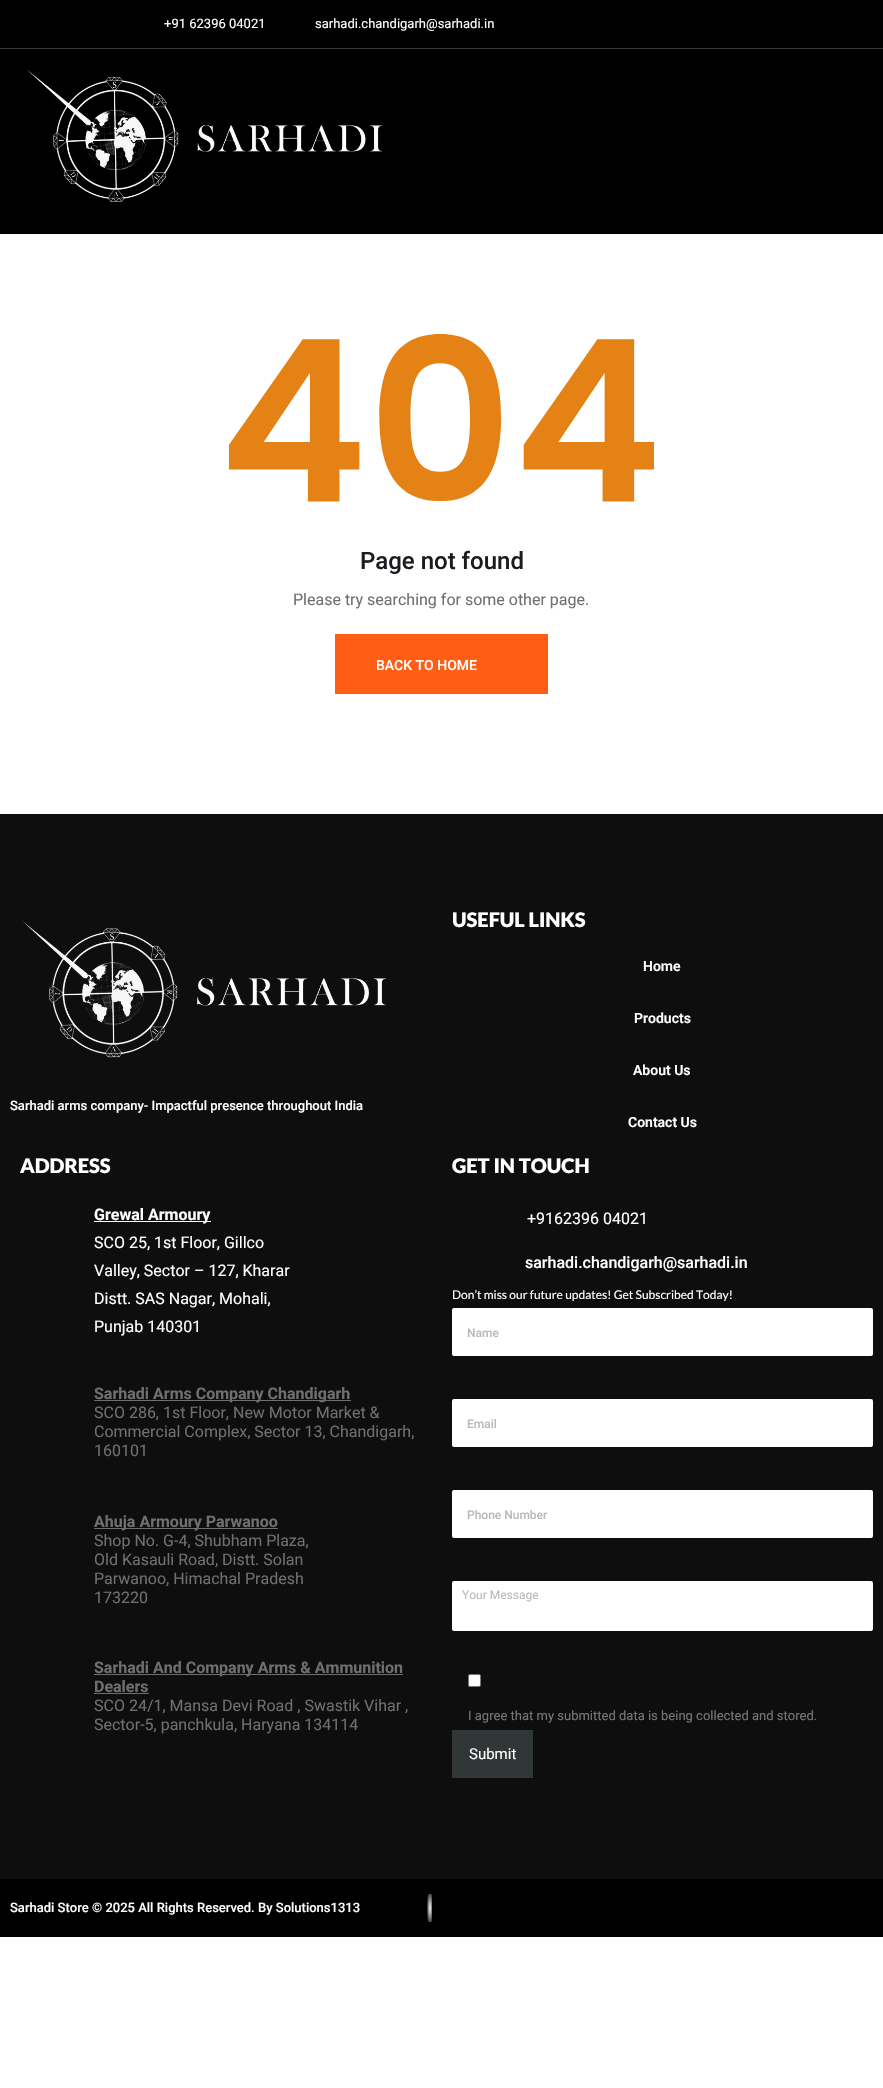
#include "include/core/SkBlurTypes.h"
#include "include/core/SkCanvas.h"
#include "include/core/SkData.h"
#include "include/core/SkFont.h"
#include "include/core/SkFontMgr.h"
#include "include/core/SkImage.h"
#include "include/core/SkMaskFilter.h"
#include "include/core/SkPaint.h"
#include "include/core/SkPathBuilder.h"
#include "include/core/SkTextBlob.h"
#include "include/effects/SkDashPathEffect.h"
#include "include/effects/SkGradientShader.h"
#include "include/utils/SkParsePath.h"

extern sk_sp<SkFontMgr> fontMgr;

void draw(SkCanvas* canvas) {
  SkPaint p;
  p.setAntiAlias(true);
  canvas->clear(SK_ColorWHITE);
  p.setColor(SK_ColorBLACK);
  canvas->drawRect(SkRect::MakeLTRB(0, 0, 883, 234), p);
  p.setColor(SkColorSetRGB(57, 57, 57));
  canvas->drawRect(SkRect::MakeLTRB(0, 48, 883, 49), p);
  canvas->drawImageRect(SkImages::DeferredFromEncodedData(SkData::MakeFromFileName("images/1.png")), SkRect::MakeLTRB(26, 69, 383, 202), SkSamplingOptions());
  canvas->drawImageRect(SkImages::DeferredFromEncodedData(SkData::MakeFromFileName("images/2.png")), SkRect::MakeLTRB(229, 334, 654, 502), SkSamplingOptions());
  p.setColor(SkColorSetRGB(255, 94, 20));
  canvas->drawRect(SkRect::MakeLTRB(335, 634, 548, 694), p);
  p.setColor(SkColorSetRGB(14, 14, 14));
  canvas->drawRect(SkRect::MakeLTRB(0, 814, 883, 1879), p);
  canvas->drawImageRect(SkImages::DeferredFromEncodedData(SkData::MakeFromFileName("images/3.png")), SkRect::MakeLTRB(21, 920, 387, 1058), SkSamplingOptions());
  p.setColor(SK_ColorWHITE);
  canvas->drawRect(SkRect::MakeLTRB(94, 1221, 211, 1222), p);
  p.setColor(SkColorSetRGB(111, 111, 111));
  canvas->drawRect(SkRect::MakeLTRB(94, 1400, 351, 1401), p);
  canvas->drawRect(SkRect::MakeLTRB(94, 1528, 278, 1529), p);
  canvas->drawRect(SkRect::MakeLTRB(94, 1674, 403, 1675), p);
  canvas->drawRect(SkRect::MakeLTRB(94, 1693, 149, 1694), p);
  p.setColor(SK_ColorWHITE);
  canvas->drawRoundRect(SkRect::MakeLTRB(452, 1308, 873, 1356), 2, 2, p);
  canvas->drawRoundRect(SkRect::MakeLTRB(452, 1399, 873, 1447), 2, 2, p);
  canvas->drawRoundRect(SkRect::MakeLTRB(452, 1490, 873, 1538), 2, 2, p);
  canvas->drawRoundRect(SkRect::MakeLTRB(452, 1581, 873, 1631), 2, 2, p);
  canvas->drawRoundRect(SkRect::MakeLTRB(468.5f, 1674.5f, 480.5f, 1686.5f), 1.5f, 1.5f, p);
  p.setStyle(SkPaint::kStroke_Style);
  p.setStrokeWidth(1);
  p.setColor(SkColorSetRGB(118, 118, 118));
  canvas->drawRoundRect(SkRect::MakeLTRB(468.5f, 1674.5f, 480.5f, 1686.5f), 1.5f, 1.5f, p);
  p.setStyle(SkPaint::kFill_Style);
  p.setColor(SkColorSetRGB(49, 54, 54));
  canvas->drawRect(SkRect::MakeLTRB(452, 1730, 533, 1778), p);
  p.setColor(SK_ColorBLACK);
  canvas->drawRect(SkRect::MakeLTRB(0, 1879, 883, 1937), p);
  {
    const SkColor colors[] = {SK_ColorWHITE, SK_ColorBLACK};
    const float stops[] = {0, 1};
    SkMatrix m = SkMatrix::Translate(430, 1908).preScale(3.5f, 20);
    p.setShader(SkGradientShader::MakeRadial({0, 0}, 1, colors, stops, 2, SkTileMode::kClamp, 0, &m));
    p.setAlpha(255);
  }
  canvas->drawRect(SkRect::MakeLTRB(427, 1894, 432, 1922), p);
  SkFont font1(fontMgr->matchFamilyStyle("Roboto", SkFontStyle::Normal()), 13);
  font1.setSubpixel(true);
  p.setShader(nullptr);
  p.setColor(SK_ColorWHITE);
  canvas->drawString("+91 62396 04021", 164, 28, font1, p);
  canvas->drawString("sarhadi.chandigarh@sarhadi.in", 315, 28, font1, p);
  SkFont font2(fontMgr->matchFamilyStyle("Roboto", SkFontStyle(500, SkFontStyle::kNormal_Width, SkFontStyle::kUpright_Slant)), 24);
  font2.setSubpixel(true);
  p.setColor(SkColorSetRGB(26, 28, 32));
  canvas->drawString("Page not found", 360, 569, font2, p);
  SkFont font3(fontMgr->matchFamilyStyle("Roboto", SkFontStyle::Normal()), 16);
  font3.setSubpixel(true);
  p.setColor(SkColorSetRGB(111, 111, 111));
  canvas->drawString("Please try searching for some other page.", 293, 605, font3, p);
  SkFont font4(fontMgr->matchFamilyStyle("Roboto", SkFontStyle(500, SkFontStyle::kNormal_Width, SkFontStyle::kUpright_Slant)), 14);
  font4.setSubpixel(true);
  p.setColor(SK_ColorWHITE);
  canvas->drawString("BACK TO HOME", 376, 670, font4, p);
  SkFont font5(fontMgr->matchFamilyStyle("Roboto", SkFontStyle(500, SkFontStyle::kNormal_Width, SkFontStyle::kUpright_Slant)), 13);
  font5.setSubpixel(true);
  canvas->drawString("Sarhadi arms company- Impactful presence throughout India", 10, 1110, font5, p);
  SkFont font6(fontMgr->matchFamilyStyle("Lato", SkFontStyle(900, SkFontStyle::kNormal_Width, SkFontStyle::kUpright_Slant)), 20);
  font6.setSubpixel(true);
  canvas->drawString("USEFUL LINKS", 452, 927, font6, p);
  SkFont font7(fontMgr->matchFamilyStyle("Roboto", SkFontStyle(600, SkFontStyle::kNormal_Width, SkFontStyle::kUpright_Slant)), 14);
  font7.setSubpixel(true);
  canvas->drawString("Home", 643, 971, font7, p);
  canvas->drawString("Products", 634, 1023, font7, p);
  canvas->drawString("About Us", 633, 1075, font7, p);
  canvas->drawString("Contact Us", 628, 1127, font7, p);
  canvas->drawString("ADDRESS", 20, 1173, font6, p);
  SkFont font8(fontMgr->matchFamilyStyle("Roboto", SkFontStyle::Bold()), 16);
  font8.setSubpixel(true);
  canvas->drawString("Grewal Armoury", 94, 1220, font8, p);
  canvas->drawString("SCO 25, 1st Floor, Gillco", 94, 1248, font3, p);
  canvas->drawString("Valley, Sector – 127, Kharar", 94, 1276, font3, p);
  canvas->drawString("Distt. SAS Nagar, Mohali,", 94, 1304, font3, p);
  canvas->drawString("Punjab 140301", 94, 1332, font3, p);
  p.setColor(SkColorSetRGB(111, 111, 111));
  canvas->drawString("Sarhadi Arms Company Chandigarh", 94, 1399, font8, p);
  canvas->drawString("SCO 286, 1st Floor, New Motor Market &", 94, 1418, font3, p);
  canvas->drawString("Commercial Complex, Sector 13, Chandigarh,", 94, 1437, font3, p);
  canvas->drawString("160101", 94, 1456, font3, p);
  canvas->drawString("Ahuja Armoury Parwanoo", 94, 1527, font8, p);
  canvas->drawString("Shop No. G-4, Shubham Plaza,", 94, 1546, font3, p);
  canvas->drawString("Old Kasauli Road, Distt. Solan", 94, 1565, font3, p);
  canvas->drawString("Parwanoo, Himachal Pradesh", 94, 1584, font3, p);
  canvas->drawString("173220", 94, 1603, font3, p);
  canvas->drawString("Sarhadi And Company Arms & Ammunition", 94, 1673, font8, p);
  canvas->drawString("Dealers", 94, 1692, font8, p);
  canvas->drawString("SCO 24/1, Mansa Devi Road , Swastik Vihar ,", 94, 1711, font3, p);
  canvas->drawString("Sector-5, panchkula, Haryana 134114", 94, 1730, font3, p);
  p.setColor(SK_ColorWHITE);
  canvas->drawString("GET IN TOUCH", 452, 1173, font6, p);
  canvas->drawString("+9162396 04021", 527, 1224, font3, p);
  SkFont font9(fontMgr->matchFamilyStyle("Roboto", SkFontStyle(500, SkFontStyle::kNormal_Width, SkFontStyle::kUpright_Slant)), 16);
  font9.setSubpixel(true);
  canvas->drawString("sarhadi.chandigarh@sarhadi.in", 525, 1268, font9, p);
  SkFont font10(fontMgr->matchFamilyStyle("Lato", SkFontStyle::Normal()), 12);
  font10.setSubpixel(true);
  canvas->drawString("Don’t miss our future updates! Get Subscribed Today!", 452, 1299, font10, p);
  SkFont font11(fontMgr->matchFamilyStyle("Roboto", SkFontStyle(500, SkFontStyle::kNormal_Width, SkFontStyle::kUpright_Slant)), 12);
  font11.setSubpixel(true);
  p.setColor(SkColorSetRGB(185, 185, 185));
  canvas->drawString("Name", 467, 1337, font11, p);
  canvas->drawString("Email", 467, 1428, font11, p);
  canvas->drawString("Phone Number", 467, 1519, font11, p);
  SkFont font12(fontMgr->matchFamilyStyle("Roboto", SkFontStyle::Normal()), 12);
  font12.setSubpixel(true);
  canvas->drawString("Your Message", 462, 1599, font12, p);
  p.setColor(SkColorSetRGB(119, 119, 119));
  canvas->drawString("I agree that my submitted data is being collected and stored.", 468, 1720, font1, p);
  SkFont font13(fontMgr->matchFamilyStyle("Roboto", SkFontStyle::Normal()), 15);
  font13.setSubpixel(true);
  p.setColor(SK_ColorWHITE);
  canvas->drawString("Submit", 469, 1759, font13, p);
  canvas->drawString("Sarhadi Store © 2025 All Rights Reserved. By Solutions1313", 10, 1912, font5, p);
}
